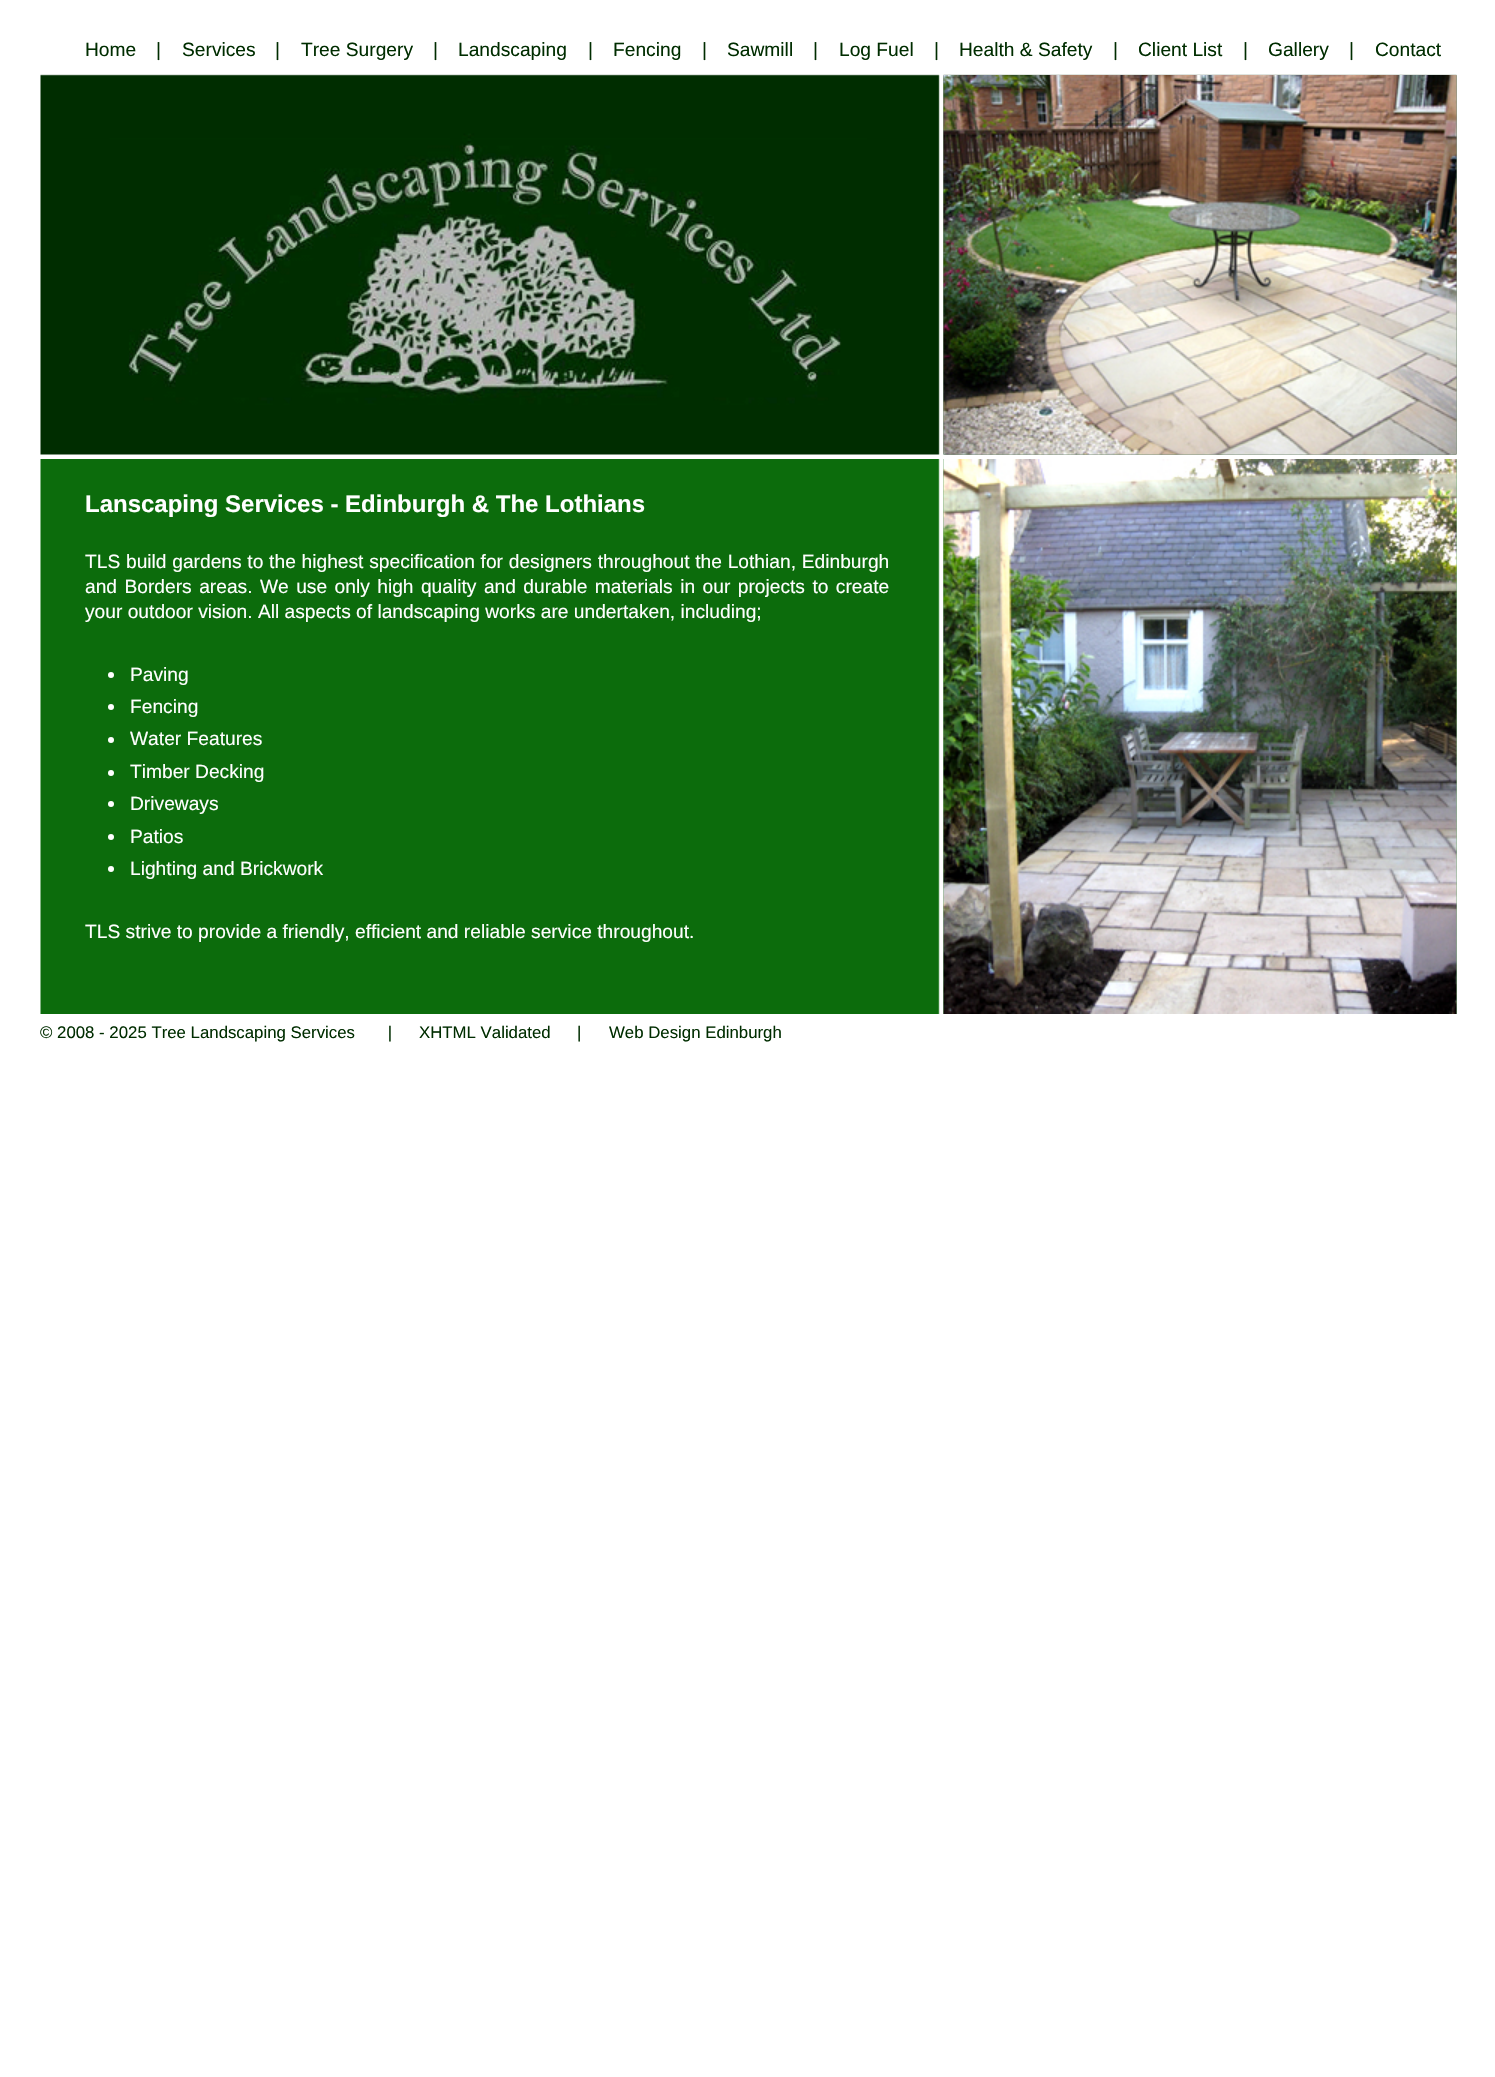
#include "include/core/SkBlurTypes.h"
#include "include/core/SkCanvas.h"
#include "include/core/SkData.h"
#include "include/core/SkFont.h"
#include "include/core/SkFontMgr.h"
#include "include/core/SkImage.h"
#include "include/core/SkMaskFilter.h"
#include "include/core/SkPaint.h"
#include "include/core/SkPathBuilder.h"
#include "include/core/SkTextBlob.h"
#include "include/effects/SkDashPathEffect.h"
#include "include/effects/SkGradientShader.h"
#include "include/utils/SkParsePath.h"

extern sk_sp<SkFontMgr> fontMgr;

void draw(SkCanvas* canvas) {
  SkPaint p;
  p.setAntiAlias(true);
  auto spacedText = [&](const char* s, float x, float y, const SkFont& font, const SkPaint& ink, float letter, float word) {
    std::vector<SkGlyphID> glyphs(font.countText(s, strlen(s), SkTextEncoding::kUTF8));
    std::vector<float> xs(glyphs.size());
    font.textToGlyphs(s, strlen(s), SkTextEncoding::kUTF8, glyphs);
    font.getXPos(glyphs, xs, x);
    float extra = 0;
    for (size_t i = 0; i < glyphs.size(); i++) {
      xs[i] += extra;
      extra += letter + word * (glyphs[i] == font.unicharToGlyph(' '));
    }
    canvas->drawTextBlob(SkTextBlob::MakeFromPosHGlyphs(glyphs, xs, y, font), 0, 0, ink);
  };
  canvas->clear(SK_ColorWHITE);
  canvas->drawImageRect(SkImages::DeferredFromEncodedData(SkData::MakeFromFileName("images/1.png")), SkRect::MakeLTRB(40, 74, 1457, 455), SkSamplingOptions());
  canvas->drawImageRect(SkImages::DeferredFromEncodedData(SkData::MakeFromFileName("images/2.png")), SkRect::MakeLTRB(943, 75, 1457, 455), SkSamplingOptions());
  canvas->drawImageRect(SkImages::DeferredFromEncodedData(SkData::MakeFromFileName("images/3.png")), SkRect::MakeLTRB(40, 459, 1457, 1014), SkSamplingOptions());
  p.setColor(SK_ColorWHITE);
  canvas->drawCircle(111, 675, 3, p);
  canvas->drawCircle(111, 707, 3, p);
  canvas->drawCircle(111, 740, 3, p);
  canvas->drawCircle(111, 773, 3, p);
  canvas->drawCircle(111, 804, 3, p);
  canvas->drawCircle(111, 837, 3, p);
  canvas->drawCircle(111, 869, 3, p);
  canvas->drawImageRect(SkImages::DeferredFromEncodedData(SkData::MakeFromFileName("images/4.png")), SkRect::MakeLTRB(943, 459, 1457, 1014), SkSamplingOptions());
  SkFont font1(fontMgr->matchFamilyStyle("Liberation Sans", SkFontStyle::Normal()), 19.2f);
  font1.setSubpixel(true);
  p.setColor(SkColorSetRGB(0, 45, 0));
  canvas->drawString("Home", 85, 56, font1, p);
  canvas->drawString("|", 156, 56, font1, p);
  canvas->drawString("Services", 182, 56, font1, p);
  canvas->drawString("|", 275, 56, font1, p);
  canvas->drawString("Tree Surgery", 301, 56, font1, p);
  canvas->drawString("|", 433, 56, font1, p);
  canvas->drawString("Landscaping", 458, 56, font1, p);
  canvas->drawString("|", 588, 56, font1, p);
  canvas->drawString("Fencing", 613, 56, font1, p);
  canvas->drawString("|", 702, 56, font1, p);
  canvas->drawString("Sawmill", 727, 56, font1, p);
  canvas->drawString("|", 813, 56, font1, p);
  canvas->drawString("Log Fuel", 839, 56, font1, p);
  canvas->drawString("|", 934, 56, font1, p);
  canvas->drawString("Health & Safety", 959, 56, font1, p);
  canvas->drawString("|", 1113, 56, font1, p);
  canvas->drawString("Client List", 1138, 56, font1, p);
  canvas->drawString("|", 1243, 56, font1, p);
  canvas->drawString("Gallery", 1268, 56, font1, p);
  canvas->drawString("|", 1349, 56, font1, p);
  canvas->drawString("Contact", 1375, 56, font1, p);
  SkFont font2(fontMgr->matchFamilyStyle("Liberation Sans", SkFontStyle::Bold()), 24);
  font2.setSubpixel(true);
  p.setColor(SK_ColorWHITE);
  canvas->drawString("Lanscaping Services - Edinburgh & The Lothians", 85, 512, font2, p);
  spacedText("TLS build gardens to the highest specification for designers throughout the Lothian, Edinburgh", 85, 568, font1, p, 0, 0.4f);
  spacedText("and Borders areas. We use only high quality and durable materials in our projects to create", 85, 593, font1, p, 0, 2.1f);
  canvas->drawString("your outdoor vision. All aspects of landscaping works are undertaken, including;", 85, 618, font1, p);
  canvas->drawString("Paving", 130, 681, font1, p);
  canvas->drawString("Fencing", 130, 713, font1, p);
  canvas->drawString("Water Features", 130, 745, font1, p);
  canvas->drawString("Timber Decking", 130, 778, font1, p);
  canvas->drawString("Driveways", 130, 810, font1, p);
  canvas->drawString("Patios", 130, 843, font1, p);
  canvas->drawString("Lighting and Brickwork", 130, 875, font1, p);
  canvas->drawString("TLS strive to provide a friendly, efficient and reliable service throughout.", 85, 938, font1, p);
  SkFont font3(fontMgr->matchFamilyStyle("Liberation Sans", SkFontStyle::Normal()), 16.8f);
  font3.setSubpixel(true);
  p.setColor(SkColorSetRGB(0, 45, 0));
  canvas->drawString("© 2008 - 2025 Tree Landscaping Services       |", 40, 1038, font3, p);
  canvas->drawString("XHTML Validated", 419, 1038, font3, p);
  canvas->drawString("|", 577, 1038, font3, p);
  canvas->drawString("Web Design Edinburgh", 609, 1038, font3, p);
}
